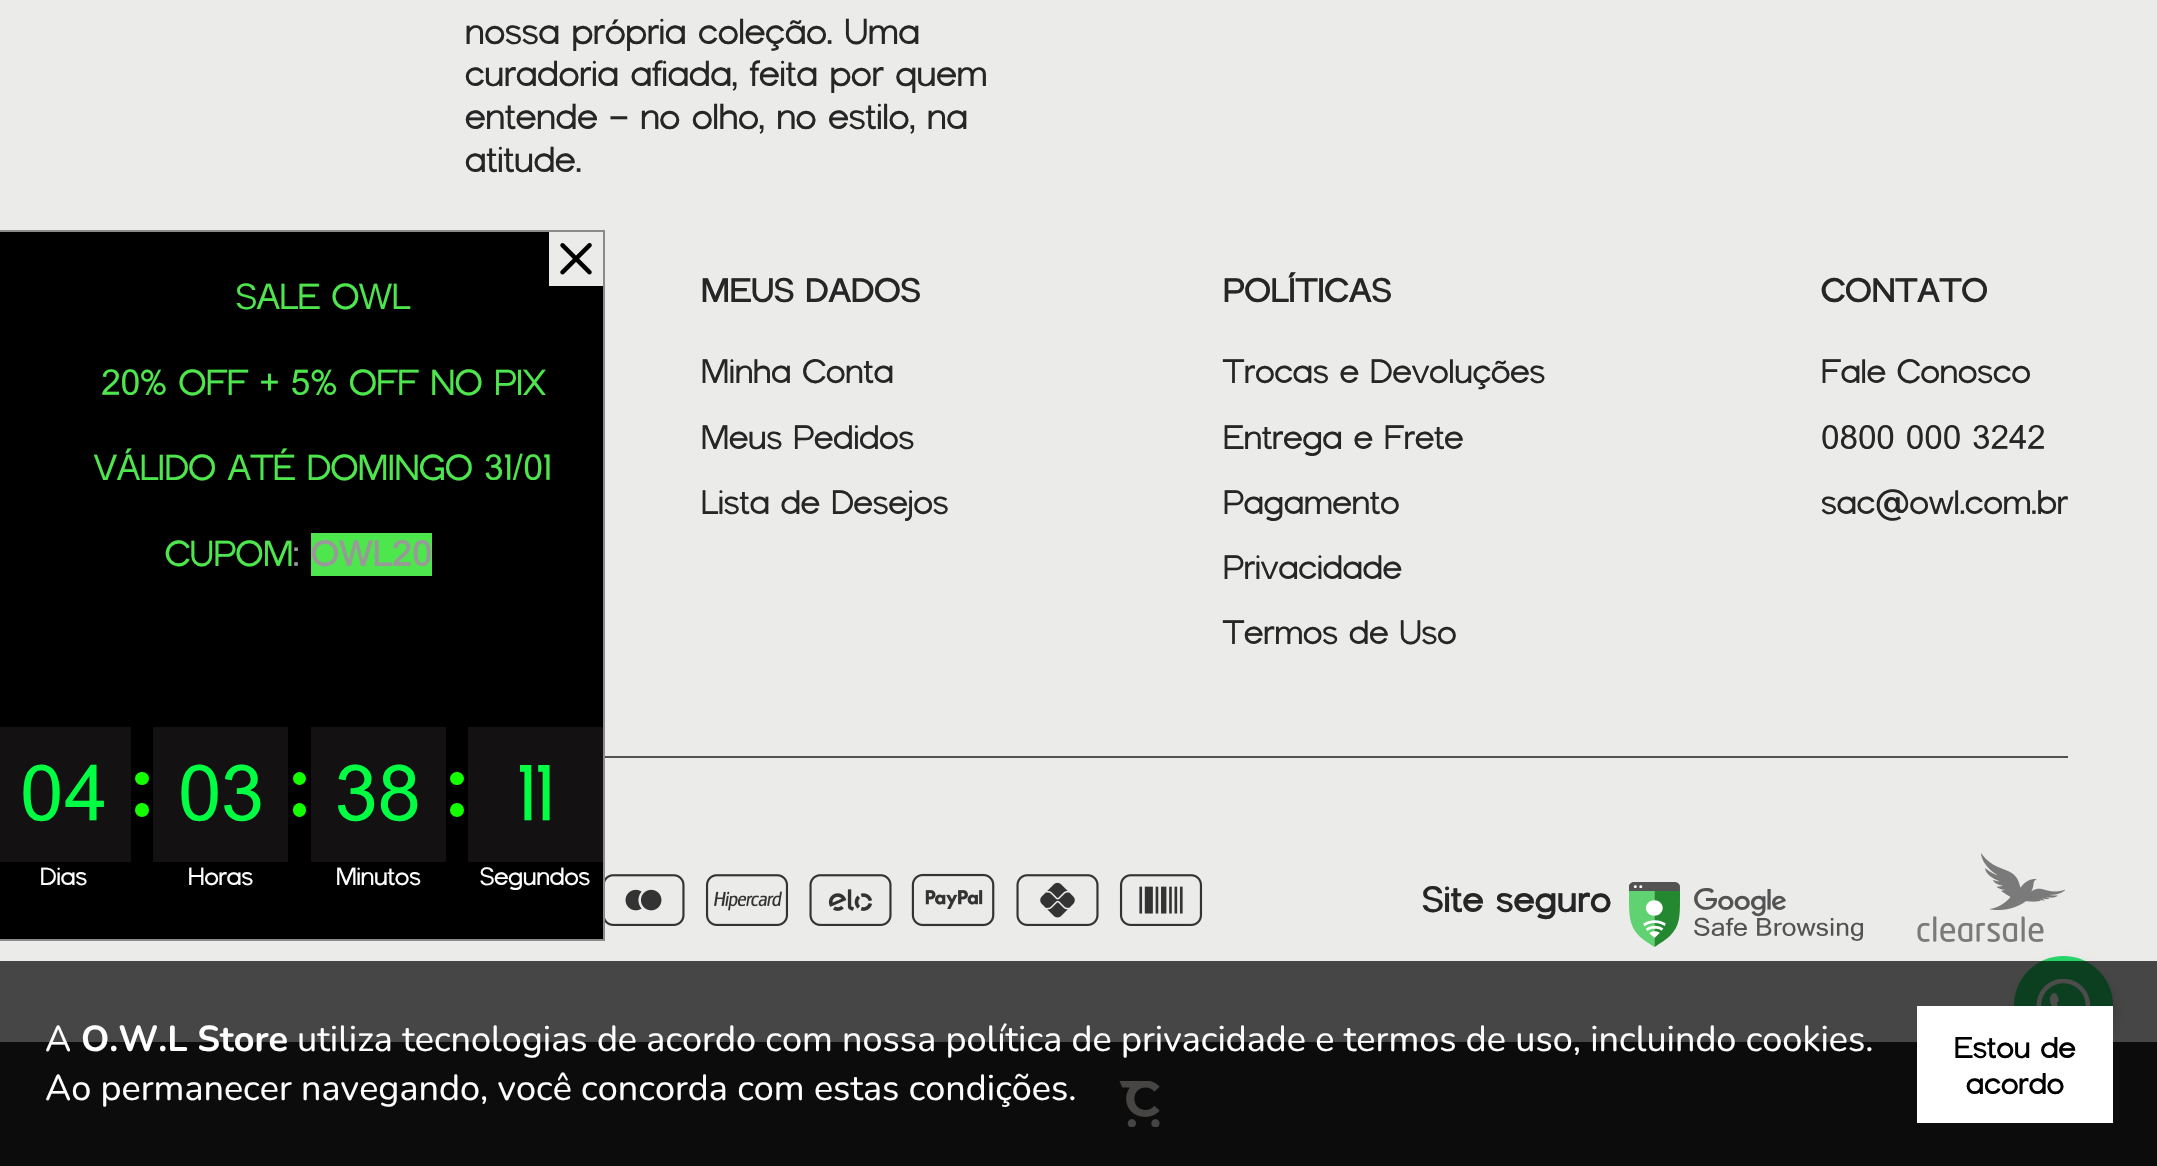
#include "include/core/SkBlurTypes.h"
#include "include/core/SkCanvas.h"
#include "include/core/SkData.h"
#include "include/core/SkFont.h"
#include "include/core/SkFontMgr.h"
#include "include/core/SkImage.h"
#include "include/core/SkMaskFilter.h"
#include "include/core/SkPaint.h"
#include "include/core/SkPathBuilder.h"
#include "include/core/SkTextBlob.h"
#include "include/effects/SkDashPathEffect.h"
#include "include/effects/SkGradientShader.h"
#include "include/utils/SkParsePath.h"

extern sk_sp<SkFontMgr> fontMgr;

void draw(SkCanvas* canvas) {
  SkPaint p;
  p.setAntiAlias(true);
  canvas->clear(SkColorSetRGB(235, 235, 234));
  p.setColor(SkColorSetRGB(82, 82, 82));
  canvas->drawRect(SkRect::MakeLTRB(605, 756, 2068, 758), p);
  canvas->drawImageRect(SkImages::DeferredFromEncodedData(SkData::MakeFromFileName("images/1.png")), SkRect::MakeLTRB(605, 874, 685, 926), SkSamplingOptions());
  canvas->drawImageRect(SkImages::DeferredFromEncodedData(SkData::MakeFromFileName("images/2.png")), SkRect::MakeLTRB(705, 874, 789, 926), SkSamplingOptions());
  canvas->drawImageRect(SkImages::DeferredFromEncodedData(SkData::MakeFromFileName("images/3.png")), SkRect::MakeLTRB(809, 874, 892, 926), SkSamplingOptions());
  canvas->drawImageRect(SkImages::DeferredFromEncodedData(SkData::MakeFromFileName("images/4.png")), SkRect::MakeLTRB(911, 873, 995, 927), SkSamplingOptions());
  canvas->drawImageRect(SkImages::DeferredFromEncodedData(SkData::MakeFromFileName("images/5.png")), SkRect::MakeLTRB(1016, 874, 1099, 926), SkSamplingOptions());
  canvas->drawImageRect(SkImages::DeferredFromEncodedData(SkData::MakeFromFileName("images/6.png")), SkRect::MakeLTRB(1119, 874, 1203, 926), SkSamplingOptions());
  canvas->drawImageRect(SkImages::DeferredFromEncodedData(SkData::MakeFromFileName("images/7.png")), SkRect::MakeLTRB(1629, 882, 1863, 947), SkSamplingOptions());
  canvas->drawImageRect(SkImages::DeferredFromEncodedData(SkData::MakeFromFileName("images/8.png")), SkRect::MakeLTRB(1917, 853, 2065, 942), SkSamplingOptions());
  p.setColor(SkColorSetRGB(38, 38, 38));
  canvas->drawRect(SkRect::MakeLTRB(0, 1042, 2157, 1166), p);
  canvas->drawImageRect(SkImages::DeferredFromEncodedData(SkData::MakeFromFileName("images/9.png")), SkRect::MakeLTRB(1119, 1081, 1160, 1127), SkSamplingOptions());
  p.setColor(SkColorSetARGB(38, 0, 0, 0));
  p.setMaskFilter(SkMaskFilter::MakeBlur(kNormal_SkBlurStyle, 5.5f));
  canvas->drawRoundRect(SkRect::MakeLTRB(2016, 963, 2115, 1062), 49.5f, 49.5f, p);
  p.setMaskFilter(nullptr);
  p.setColor(SkColorSetRGB(37, 211, 102));
  canvas->drawCircle(2063.5f, 1005.5f, 49.5f, p);
  canvas->drawImageRect(SkImages::DeferredFromEncodedData(SkData::MakeFromFileName("images/11.png")), SkRect::MakeLTRB(2036, 979, 2090, 1006), SkSamplingOptions());
  p.setColor(SkColorSetARGB(179, 0, 0, 0));
  canvas->drawRect(SkRect::MakeLTRB(0, 961, 2157, 1166), p);
  p.setColor(SK_ColorWHITE);
  canvas->drawRect(SkRect::MakeLTRB(1917, 1006, 2113, 1123), p);
  p.setColor(SK_ColorBLACK);
  canvas->drawRect(SkRect::MakeLTRB(-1, 231, 604, 940), p);
  p.setStyle(SkPaint::kStroke_Style);
  p.setStrokeWidth(2);
  p.setColor(SkColorSetRGB(139, 139, 139));
  canvas->drawRect(SkRect::MakeLTRB(-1, 231, 604, 940), p);
  p.setStyle(SkPaint::kFill_Style);
  p.setColor(SkColorSetRGB(235, 235, 234));
  canvas->drawRect(SkRect::MakeLTRB(549, 232, 603, 286), p);
  canvas->drawImageRect(SkImages::DeferredFromEncodedData(SkData::MakeFromFileName("images/10.png")), SkRect::MakeLTRB(560, 243, 592, 275), SkSamplingOptions());
  p.setColor(SkColorSetRGB(77, 230, 77));
  canvas->drawRect(SkRect::MakeLTRB(311, 533, 432, 576), p);
  p.setColor(SkColorSetRGB(19, 17, 17));
  canvas->drawRect(SkRect::MakeLTRB(0, 727, 131, 862), p);
  p.setColor(SkColorSetRGB(20, 255, 0));
  canvas->drawRoundRect(SkRect::MakeLTRB(135, 772, 149, 785), 6.5f, 6.5f, p);
  canvas->drawCircle(142, 810, 7, p);
  p.setColor(SkColorSetRGB(19, 17, 17));
  canvas->drawRect(SkRect::MakeLTRB(153, 727, 288, 862), p);
  p.setColor(SkColorSetRGB(20, 255, 0));
  canvas->drawCircle(299.5f, 778.5f, 6.5f, p);
  canvas->drawRoundRect(SkRect::MakeLTRB(293, 803, 306, 817), 6.5f, 6.5f, p);
  p.setColor(SkColorSetRGB(19, 17, 17));
  canvas->drawRect(SkRect::MakeLTRB(311, 727, 446, 862), p);
  p.setColor(SkColorSetRGB(20, 255, 0));
  canvas->drawRoundRect(SkRect::MakeLTRB(450, 772, 464, 785), 6.5f, 6.5f, p);
  canvas->drawCircle(457, 810, 7, p);
  p.setColor(SkColorSetRGB(19, 17, 17));
  canvas->drawRect(SkRect::MakeLTRB(468, 727, 603, 862), p);
  SkFont font1(fontMgr->matchFamilyStyle("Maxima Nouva", SkFontStyle::Normal()), 36);
  font1.setSubpixel(true);
  p.setColor(SkColorSetRGB(38, 38, 38));
  canvas->drawString("nossa própria coleção. Uma", 465, 44, font1, p);
  canvas->drawString("curadoria afiada, feita por quem", 465, 86, font1, p);
  canvas->drawString("entende — no olho, no estilo, na", 465, 129, font1, p);
  canvas->drawString("atitude.", 465, 172, font1, p);
  SkFont font2(fontMgr->matchFamilyStyle("Maxima Nouva", SkFontStyle::Bold()), 33.75f);
  font2.setSubpixel(true);
  canvas->drawString("MEUS DADOS", 701, 302, font2, p);
  SkFont font3(fontMgr->matchFamilyStyle("Maxima Nouva", SkFontStyle::Normal()), 33.75f);
  font3.setSubpixel(true);
  canvas->drawString("Minha Conta", 701, 383, font3, p);
  canvas->drawString("Meus Pedidos", 701, 449, font3, p);
  canvas->drawString("Lista de Desejos", 701, 514, font3, p);
  canvas->drawString("POLÍTICAS", 1223, 302, font2, p);
  canvas->drawString("Trocas e Devoluções", 1223, 383, font3, p);
  canvas->drawString("Entrega e Frete", 1223, 449, font3, p);
  canvas->drawString("Pagamento", 1223, 514, font3, p);
  canvas->drawString("Privacidade", 1223, 579, font3, p);
  canvas->drawString("Termos de Uso", 1223, 644, font3, p);
  canvas->drawString("CONTATO", 1821, 302, font2, p);
  canvas->drawString("Fale Conosco", 1821, 383, font3, p);
  canvas->drawString("0800 000 3242", 1821, 449, font3, p);
  canvas->drawString("sac@owl.com.br", 1821, 514, font3, p);
  SkFont font4(fontMgr->matchFamilyStyle("Maxima Nouva", SkFontStyle::Bold()), 36);
  font4.setSubpixel(true);
  canvas->drawString("Site seguro", 1422, 912, font4, p);
  SkFont font5(fontMgr->matchFamilyStyle("Nunito", SkFontStyle::Normal()), 36);
  font5.setSubpixel(true);
  p.setColor(SK_ColorWHITE);
  canvas->drawString("A", 45, 1051, font5, p);
  SkFont font6(fontMgr->matchFamilyStyle("Nunito", SkFontStyle::Bold()), 36);
  font6.setSubpixel(true);
  canvas->drawString("O.W.L Store", 81, 1051, font6, p);
  canvas->drawString("utiliza tecnologias de acordo com nossa política de privacidade e termos de uso, incluindo cookies.", 297, 1051, font5, p);
  canvas->drawString("Ao permanecer navegando, você concorda com estas condições.", 45, 1100, font5, p);
  SkFont font7(fontMgr->matchFamilyStyle("Maxima Nouva", SkFontStyle(600, SkFontStyle::kNormal_Width, SkFontStyle::kUpright_Slant)), 30);
  font7.setSubpixel(true);
  p.setColor(SK_ColorBLACK);
  canvas->drawString("Estou de", 1954, 1058, font7, p);
  canvas->drawString("acordo", 1966, 1094, font7, p);
  p.setColor(SkColorSetRGB(77, 230, 77));
  canvas->drawString("SALE OWL", 236, 309, font1, p);
  canvas->drawString("20% OFF + 5% OFF NO PIX", 101, 395, font1, p);
  canvas->drawString("VÁLIDO ATÉ DOMINGO 31/01", 94, 480, font1, p);
  canvas->drawString("CUPOM", 165, 566, font1, p);
  p.setColor(SkColorSetRGB(153, 153, 153));
  canvas->drawString(":", 293, 566, font1, p);
  canvas->drawString("OWL20", 311, 566, font4, p);
  SkFont font8(fontMgr->matchFamilyStyle("Maxima Nouva", SkFontStyle::Normal()), 79);
  font8.setSubpixel(true);
  p.setColor(SkColorSetRGB(0, 255, 67));
  canvas->drawString("04", 20, 821, font8, p);
  SkFont font9(fontMgr->matchFamilyStyle("Maxima Nouva", SkFontStyle::Normal()), 24.75f);
  font9.setSubpixel(true);
  p.setColor(SK_ColorWHITE);
  canvas->drawString("Dias", 40, 885, font9, p);
  p.setColor(SkColorSetRGB(0, 255, 67));
  canvas->drawString("03", 178, 821, font8, p);
  p.setColor(SK_ColorWHITE);
  canvas->drawString("Horas", 188, 885, font9, p);
  p.setColor(SkColorSetRGB(0, 255, 67));
  canvas->drawString("38", 335, 821, font8, p);
  p.setColor(SK_ColorWHITE);
  canvas->drawString("Minutos", 336, 885, font9, p);
  p.setColor(SkColorSetRGB(0, 255, 67));
  canvas->drawString("11", 517, 821, font8, p);
  p.setColor(SK_ColorWHITE);
  canvas->drawString("Segundos", 480, 885, font9, p);
}
